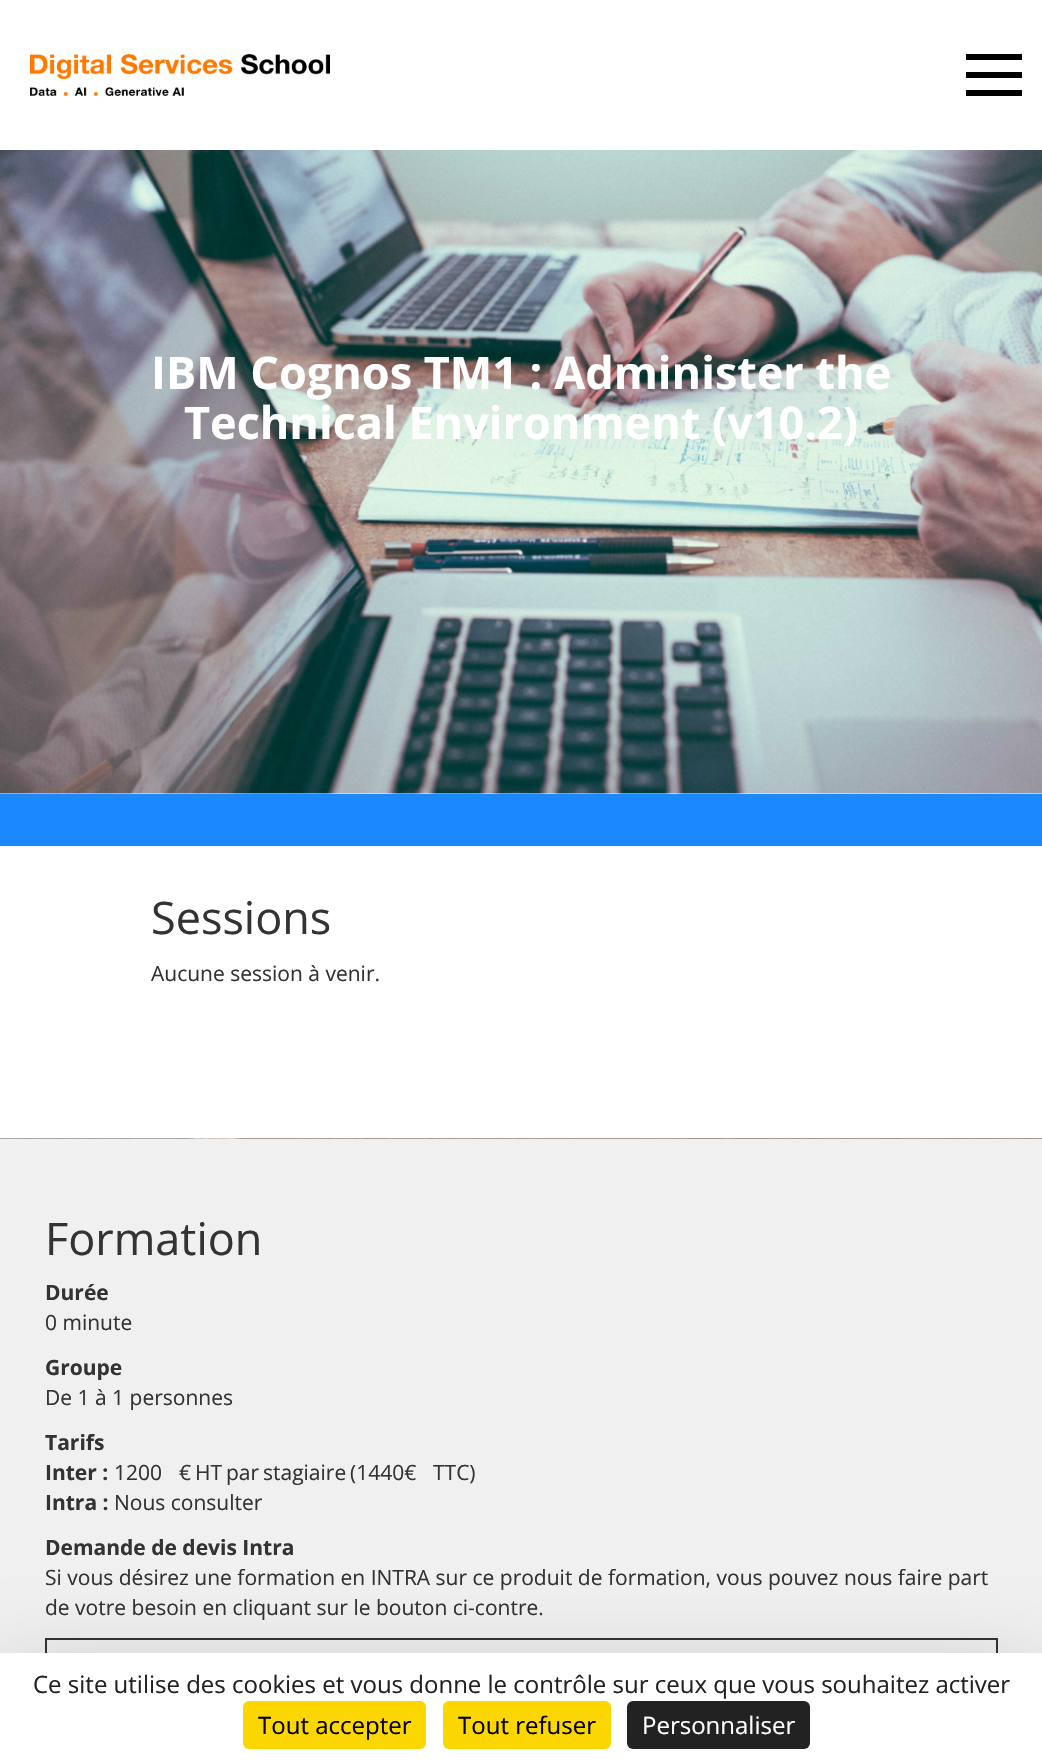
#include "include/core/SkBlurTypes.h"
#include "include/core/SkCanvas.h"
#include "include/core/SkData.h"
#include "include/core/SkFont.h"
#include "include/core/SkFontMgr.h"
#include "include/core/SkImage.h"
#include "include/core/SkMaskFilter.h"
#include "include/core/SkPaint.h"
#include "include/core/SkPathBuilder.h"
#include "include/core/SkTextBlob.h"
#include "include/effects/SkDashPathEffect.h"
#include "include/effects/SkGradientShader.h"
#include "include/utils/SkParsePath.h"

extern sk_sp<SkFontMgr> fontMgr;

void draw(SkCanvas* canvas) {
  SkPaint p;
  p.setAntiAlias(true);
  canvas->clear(SK_ColorWHITE);
  canvas->drawImageRect(SkImages::DeferredFromEncodedData(SkData::MakeFromFileName("images/1.png")), SkRect::MakeLTRB(30, 54, 330, 96), SkSamplingOptions());
  p.setColor(SK_ColorBLACK);
  canvas->drawRect(SkRect::MakeLTRB(966, 54, 1022, 60), p);
  canvas->drawRect(SkRect::MakeLTRB(966, 72, 1022, 78), p);
  canvas->drawRect(SkRect::MakeLTRB(966, 90, 1022, 96), p);
  canvas->drawImageRect(SkImages::DeferredFromEncodedData(SkData::MakeFromFileName("images/2.png")), SkRect::MakeLTRB(0, 150, 1042, 794), SkSamplingOptions());
  p.setColor(SkColorSetRGB(27, 136, 255));
  canvas->drawRect(SkRect::MakeLTRB(0, 794, 1042, 846), p);
  canvas->drawImageRect(SkImages::DeferredFromEncodedData(SkData::MakeFromFileName("images/3.png")), SkRect::MakeLTRB(0, 1138, 1042, 1139), SkSamplingOptions());
  p.setColor(SkColorSetRGB(240, 240, 240));
  canvas->drawRect(SkRect::MakeLTRB(0, 1139, 1042, 1653), p);
  p.setStyle(SkPaint::kStroke_Style);
  p.setStrokeWidth(2);
  p.setColor(SkColorSetRGB(50, 50, 55));
  canvas->drawRect(SkRect::MakeLTRB(46, 1639, 997, 1693), p);
  p.setStyle(SkPaint::kFill_Style);
  p.setColor(SkColorSetARGB(64, 0, 0, 0));
  p.setMaskFilter(SkMaskFilter::MakeBlur(kNormal_SkBlurStyle, 45));
  canvas->drawRect(SkRect::MakeLTRB(0, 1683, 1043, 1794), p);
  p.setMaskFilter(nullptr);
  p.setColor(SK_ColorWHITE);
  canvas->drawRect(SkRect::MakeLTRB(0, 1653, 1042, 1764), p);
  p.setColor(SkColorSetRGB(251, 214, 0));
  canvas->drawRoundRect(SkRect::MakeLTRB(243, 1701, 426, 1749), 6, 6, p);
  canvas->drawRoundRect(SkRect::MakeLTRB(443, 1701, 611, 1749), 6, 6, p);
  p.setColor(SkColorSetRGB(34, 34, 34));
  canvas->drawRoundRect(SkRect::MakeLTRB(627, 1701, 810, 1749), 6, 6, p);
  SkFont font1(fontMgr->matchFamilyStyle("Open Sans", SkFontStyle::Bold()), 45);
  font1.setSubpixel(true);
  p.setColor(SK_ColorWHITE);
  canvas->drawString("IBM Cognos TM1 : Administer the", 151, 389, font1, p);
  canvas->drawString("Technical Environment (v10.2)", 184, 439, font1, p);
  SkFont font2(fontMgr->matchFamilyStyle("Open Sans", SkFontStyle::Normal()), 45);
  font2.setSubpixel(true);
  p.setColor(SkColorSetRGB(51, 51, 51));
  canvas->drawString("Sessions", 151, 934, font2, p);
  SkFont font3(fontMgr->matchFamilyStyle("Open Sans", SkFontStyle::Normal()), 21);
  font3.setSubpixel(true);
  canvas->drawString("Aucune session à venir.", 151, 981, font3, p);
  canvas->drawString("Formation", 45, 1255, font2, p);
  SkFont font4(fontMgr->matchFamilyStyle("Open Sans", SkFontStyle::Bold()), 21);
  font4.setSubpixel(true);
  canvas->drawString("Durée", 45, 1300, font4, p);
  canvas->drawString("0 minute", 45, 1330, font3, p);
  canvas->drawString("Groupe", 45, 1375, font4, p);
  canvas->drawString("De 1 à 1 personnes", 45, 1405, font3, p);
  canvas->drawString("Tarifs", 45, 1450, font4, p);
  canvas->drawString("Inter :", 45, 1480, font4, p);
  canvas->drawString("1 200", 114, 1480, font3, p);
  canvas->drawString("€", 179, 1480, font3, p);
  canvas->drawString("HT", 195, 1480, font3, p);
  canvas->drawString("par", 226, 1480, font3, p);
  canvas->drawString("stagiaire", 263, 1480, font3, p);
  canvas->drawString("(1 440€", 350, 1480, font3, p);
  canvas->drawString("TTC)", 433, 1480, font3, p);
  canvas->drawString("Intra :", 45, 1510, font4, p);
  canvas->drawString("Nous consulter", 114, 1510, font3, p);
  canvas->drawString("Demande de devis Intra", 45, 1555, font4, p);
  canvas->drawString("Si vous désirez une formation en INTRA sur ce produit de formation, vous pouvez nous faire part", 45, 1585, font3, p);
  canvas->drawString("de votre besoin en cliquant sur le bouton ci-contre.", 45, 1615, font3, p);
  SkFont font5(fontMgr->matchFamilyStyle("Open Sans", SkFontStyle::Normal()), 24);
  font5.setSubpixel(true);
  p.setColor(SkColorSetRGB(34, 34, 34));
  canvas->drawString("Ce site utilise des cookies et vous donne le contrôle sur ceux que vous souhaitez activer", 33, 1693, font5, p);
  p.setColor(SK_ColorBLACK);
  canvas->drawString("Tout accepter", 258, 1734, font5, p);
  canvas->drawString("Tout refuser", 458, 1734, font5, p);
  p.setColor(SK_ColorWHITE);
  canvas->drawString("Personnaliser", 642, 1734, font5, p);
}
